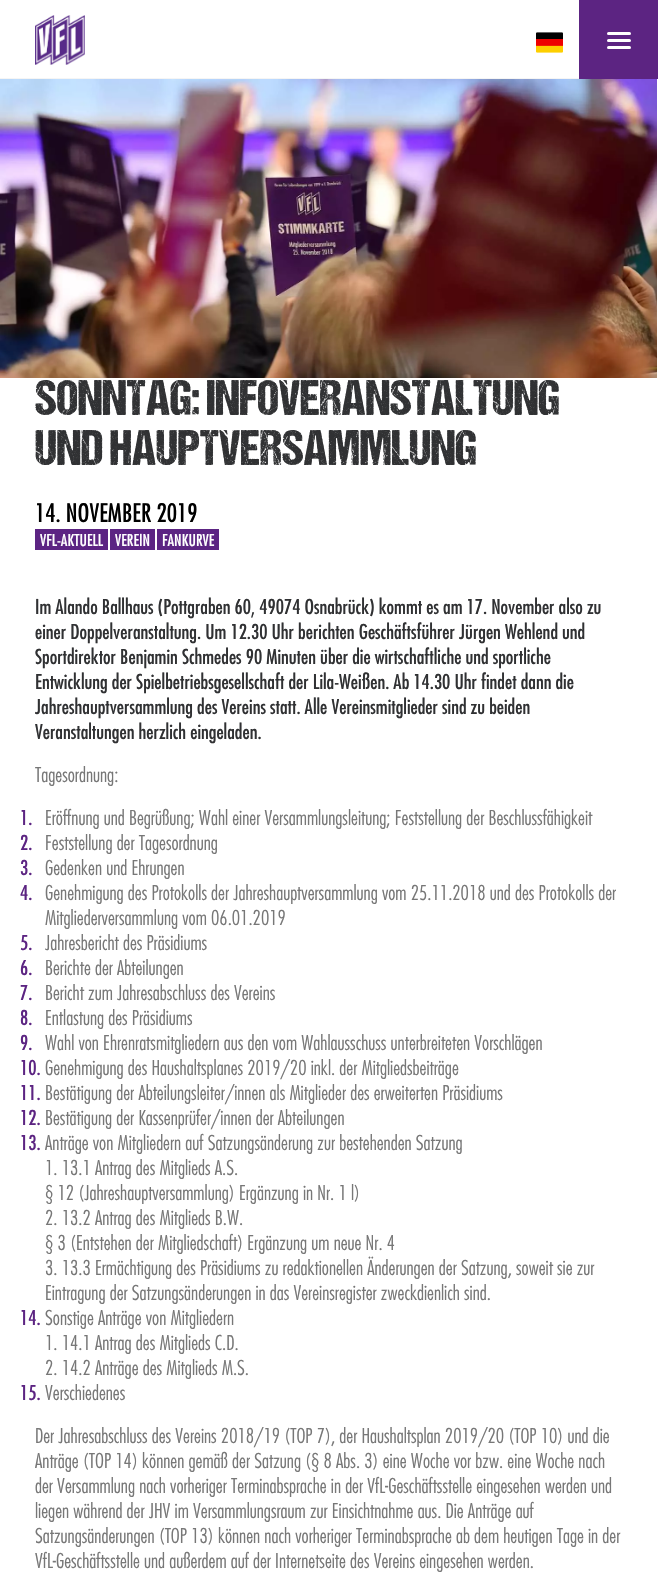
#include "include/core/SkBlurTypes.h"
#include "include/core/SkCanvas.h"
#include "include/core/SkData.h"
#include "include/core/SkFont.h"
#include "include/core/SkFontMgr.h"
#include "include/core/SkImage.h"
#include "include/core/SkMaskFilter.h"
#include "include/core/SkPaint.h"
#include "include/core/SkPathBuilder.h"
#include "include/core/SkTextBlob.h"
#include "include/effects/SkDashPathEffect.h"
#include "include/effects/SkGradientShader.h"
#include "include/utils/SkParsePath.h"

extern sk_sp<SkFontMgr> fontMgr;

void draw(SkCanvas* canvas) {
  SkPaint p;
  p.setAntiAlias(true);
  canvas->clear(SK_ColorWHITE);
  p.setColor(SkColorSetRGB(245, 245, 245));
  canvas->drawRect(SkRect::MakeLTRB(0, 78, 579, 79), p);
  canvas->drawImageRect(SkImages::DeferredFromEncodedData(SkData::MakeFromFileName("images/1.png")), SkRect::MakeLTRB(35, 15, 85, 65), SkSamplingOptions());
  canvas->drawImageRect(SkImages::DeferredFromEncodedData(SkData::MakeFromFileName("images/2.png")), SkRect::MakeLTRB(536, 32, 563, 53), SkSamplingOptions());
  p.setColor(SkColorSetRGB(92, 36, 130));
  canvas->drawRect(SkRect::MakeLTRB(579, 0, 658, 79), p);
  p.setColor(SK_ColorWHITE);
  canvas->drawRoundRect(SkRect::MakeLTRB(607, 39, 631, 42), 1.5f, 1.5f, p);
  canvas->drawRoundRect(SkRect::MakeLTRB(607, 32, 631, 35), 1.5f, 1.5f, p);
  canvas->drawRoundRect(SkRect::MakeLTRB(607, 46, 631, 49), 1.5f, 1.5f, p);
  canvas->drawImageRect(SkImages::DeferredFromEncodedData(SkData::MakeFromFileName("images/3.png")), SkRect::MakeLTRB(0, 79, 657, 378), SkSamplingOptions());
  p.setColor(SkColorSetRGB(92, 36, 131));
  canvas->drawRect(SkRect::MakeLTRB(35, 529, 108, 550), p);
  canvas->drawRect(SkRect::MakeLTRB(110, 529, 155, 550), p);
  canvas->drawRect(SkRect::MakeLTRB(157, 529, 219, 550), p);
  SkFont font1(fontMgr->matchFamilyStyle("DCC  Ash", SkFontStyle::Normal()), 50);
  font1.setSubpixel(true);
  p.setColor(SkColorSetRGB(48, 49, 51));
  canvas->drawString("SONNTAG: INFOVERANSTALTUNG", 35, 415, font1, p);
  canvas->drawString("UND HAUPTVERSAMMLUNG", 35, 465, font1, p);
  SkFont font2(fontMgr->matchFamilyStyle("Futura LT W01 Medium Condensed", SkFontStyle(500, SkFontStyle::kNormal_Width, SkFontStyle::kUpright_Slant)), 25);
  font2.setSubpixel(true);
  p.setColor(SK_ColorBLACK);
  canvas->drawString("14. NOVEMBER 2019", 35, 522, font2, p);
  SkFont font3(fontMgr->matchFamilyStyle("Futura LT W01 Medium Condensed", SkFontStyle(500, SkFontStyle::kNormal_Width, SkFontStyle::kUpright_Slant)), 16);
  font3.setSubpixel(true);
  p.setColor(SK_ColorWHITE);
  canvas->drawString("VFL-AKTUELL", 40, 546, font3, p);
  canvas->drawString("VEREIN", 115, 546, font3, p);
  canvas->drawString("FANKURVE", 162, 546, font3, p);
  SkFont font4(fontMgr->matchFamilyStyle("Futura LT W01 Medium Condensed", SkFontStyle(500, SkFontStyle::kNormal_Width, SkFontStyle::kUpright_Slant)), 20);
  font4.setSubpixel(true);
  p.setColor(SkColorSetRGB(48, 49, 51));
  canvas->drawString("Im Alando Ballhaus (Pottgraben 60, 49074 Osnabrück) kommt es am 17. November also zu", 35, 614, font4, p);
  canvas->drawString("einer Doppelveranstaltung. Um 12.30 Uhr berichten Geschäftsführer Jürgen Wehlend und", 35, 639, font4, p);
  canvas->drawString("Sportdirektor Benjamin Schmedes 90 Minuten über die wirtschaftliche und sportliche", 35, 664, font4, p);
  canvas->drawString("Entwicklung der Spielbetriebsgesellschaft der Lila-Weißen. Ab 14.30 Uhr findet dann die", 35, 689, font4, p);
  canvas->drawString("Jahreshauptversammlung des Vereins statt. Alle Vereinsmitglieder sind zu beiden", 35, 714, font4, p);
  canvas->drawString("Veranstaltungen herzlich eingeladen.", 35, 739, font4, p);
  SkFont font5(fontMgr->matchFamilyStyle("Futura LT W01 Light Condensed", SkFontStyle(300, SkFontStyle::kNormal_Width, SkFontStyle::kUpright_Slant)), 20);
  font5.setSubpixel(true);
  p.setColor(SkColorSetRGB(119, 119, 119));
  canvas->drawString("Tagesordnung:", 35, 782, font5, p);
  p.setColor(SkColorSetRGB(92, 36, 130));
  canvas->drawString("1.", 20, 825, font4, p);
  p.setColor(SkColorSetRGB(119, 119, 119));
  canvas->drawString("Eröffnung und Begrüßung; Wahl einer Versammlungsleitung; Feststellung der Beschlussfähigkeit", 45, 825, font5, p);
  p.setColor(SkColorSetRGB(92, 36, 130));
  canvas->drawString("2.", 20, 850, font4, p);
  p.setColor(SkColorSetRGB(119, 119, 119));
  canvas->drawString("Feststellung der Tagesordnung", 45, 850, font5, p);
  p.setColor(SkColorSetRGB(92, 36, 130));
  canvas->drawString("3.", 20, 875, font4, p);
  p.setColor(SkColorSetRGB(119, 119, 119));
  canvas->drawString("Gedenken und Ehrungen", 45, 875, font5, p);
  p.setColor(SkColorSetRGB(92, 36, 130));
  canvas->drawString("4.", 20, 900, font4, p);
  p.setColor(SkColorSetRGB(119, 119, 119));
  canvas->drawString("Genehmigung des Protokolls der Jahreshauptversammlung vom 25.11.2018 und des Protokolls der", 45, 900, font5, p);
  canvas->drawString("Mitgliederversammlung vom 06.01.2019", 45, 925, font5, p);
  p.setColor(SkColorSetRGB(92, 36, 130));
  canvas->drawString("5.", 20, 950, font4, p);
  p.setColor(SkColorSetRGB(119, 119, 119));
  canvas->drawString("Jahresbericht des Präsidiums", 45, 950, font5, p);
  p.setColor(SkColorSetRGB(92, 36, 130));
  canvas->drawString("6.", 20, 975, font4, p);
  p.setColor(SkColorSetRGB(119, 119, 119));
  canvas->drawString("Berichte der Abteilungen", 45, 975, font5, p);
  p.setColor(SkColorSetRGB(92, 36, 130));
  canvas->drawString("7.", 20, 1000, font4, p);
  p.setColor(SkColorSetRGB(119, 119, 119));
  canvas->drawString("Bericht zum Jahresabschluss des Vereins", 45, 1000, font5, p);
  p.setColor(SkColorSetRGB(92, 36, 130));
  canvas->drawString("8.", 20, 1025, font4, p);
  p.setColor(SkColorSetRGB(119, 119, 119));
  canvas->drawString("Entlastung des Präsidiums", 45, 1025, font5, p);
  p.setColor(SkColorSetRGB(92, 36, 130));
  canvas->drawString("9.", 20, 1050, font4, p);
  p.setColor(SkColorSetRGB(119, 119, 119));
  canvas->drawString("Wahl von Ehrenratsmitgliedern aus den vom Wahlausschuss unterbreiteten Vorschlägen", 45, 1050, font5, p);
  p.setColor(SkColorSetRGB(92, 36, 130));
  canvas->drawString("10.", 20, 1075, font4, p);
  p.setColor(SkColorSetRGB(119, 119, 119));
  canvas->drawString("Genehmigung des Haushaltsplanes 2019/20 inkl. der Mitgliedsbeiträge", 45, 1075, font5, p);
  p.setColor(SkColorSetRGB(92, 36, 130));
  canvas->drawString("11.", 20, 1100, font4, p);
  p.setColor(SkColorSetRGB(119, 119, 119));
  canvas->drawString("Bestätigung der Abteilungsleiter/innen als Mitglieder des erweiterten Präsidiums", 45, 1100, font5, p);
  p.setColor(SkColorSetRGB(92, 36, 130));
  canvas->drawString("12.", 20, 1125, font4, p);
  p.setColor(SkColorSetRGB(119, 119, 119));
  canvas->drawString("Bestätigung der Kassenprüfer/innen der Abteilungen", 45, 1125, font5, p);
  p.setColor(SkColorSetRGB(92, 36, 130));
  canvas->drawString("13.", 20, 1150, font4, p);
  p.setColor(SkColorSetRGB(119, 119, 119));
  canvas->drawString("Anträge von Mitgliedern auf Satzungsänderung zur bestehenden Satzung", 45, 1150, font5, p);
  canvas->drawString("1. 13.1 Antrag des Mitglieds A.S.", 45, 1175, font5, p);
  canvas->drawString("§ 12 (Jahreshauptversammlung) Ergänzung in Nr. 1 l)", 45, 1200, font5, p);
  canvas->drawString("2. 13.2 Antrag des Mitglieds B.W.", 45, 1225, font5, p);
  canvas->drawString("§ 3 (Entstehen der Mitgliedschaft) Ergänzung um neue Nr. 4", 45, 1250, font5, p);
  canvas->drawString("3. 13.3 Ermächtigung des Präsidiums zu redaktionellen Änderungen der Satzung, soweit sie zur", 45, 1275, font5, p);
  canvas->drawString("Eintragung der Satzungsänderungen in das Vereinsregister zweckdienlich sind.", 45, 1300, font5, p);
  p.setColor(SkColorSetRGB(92, 36, 130));
  canvas->drawString("14.", 20, 1325, font4, p);
  p.setColor(SkColorSetRGB(119, 119, 119));
  canvas->drawString("Sonstige Anträge von Mitgliedern", 45, 1325, font5, p);
  canvas->drawString("1. 14.1 Antrag des Mitglieds C.D.", 45, 1350, font5, p);
  canvas->drawString("2. 14.2 Anträge des Mitglieds M.S.", 45, 1375, font5, p);
  p.setColor(SkColorSetRGB(92, 36, 130));
  canvas->drawString("15.", 20, 1400, font4, p);
  p.setColor(SkColorSetRGB(119, 119, 119));
  canvas->drawString("Verschiedenes", 45, 1400, font5, p);
  canvas->drawString("Der Jahresabschluss des Vereins 2018/19 (TOP 7), der Haushaltsplan 2019/20 (TOP 10) und die", 35, 1443, font5, p);
  canvas->drawString("Anträge (TOP 14) können gemäß der Satzung (§ 8 Abs. 3) eine Woche vor bzw. eine Woche nach", 35, 1468, font5, p);
  canvas->drawString("der Versammlung nach vorheriger Terminabsprache in der VfL-Geschäftsstelle eingesehen werden und", 35, 1493, font5, p);
  canvas->drawString("liegen während der JHV im Versammlungsraum zur Einsichtnahme aus. Die Anträge auf", 35, 1518, font5, p);
  canvas->drawString("Satzungsänderungen (TOP 13) können nach vorheriger Terminabsprache ab dem heutigen Tage in der", 35, 1543, font5, p);
  canvas->drawString("VfL-Geschäftsstelle und außerdem auf der Internetseite des Vereins eingesehen werden.", 35, 1568, font5, p);
}
